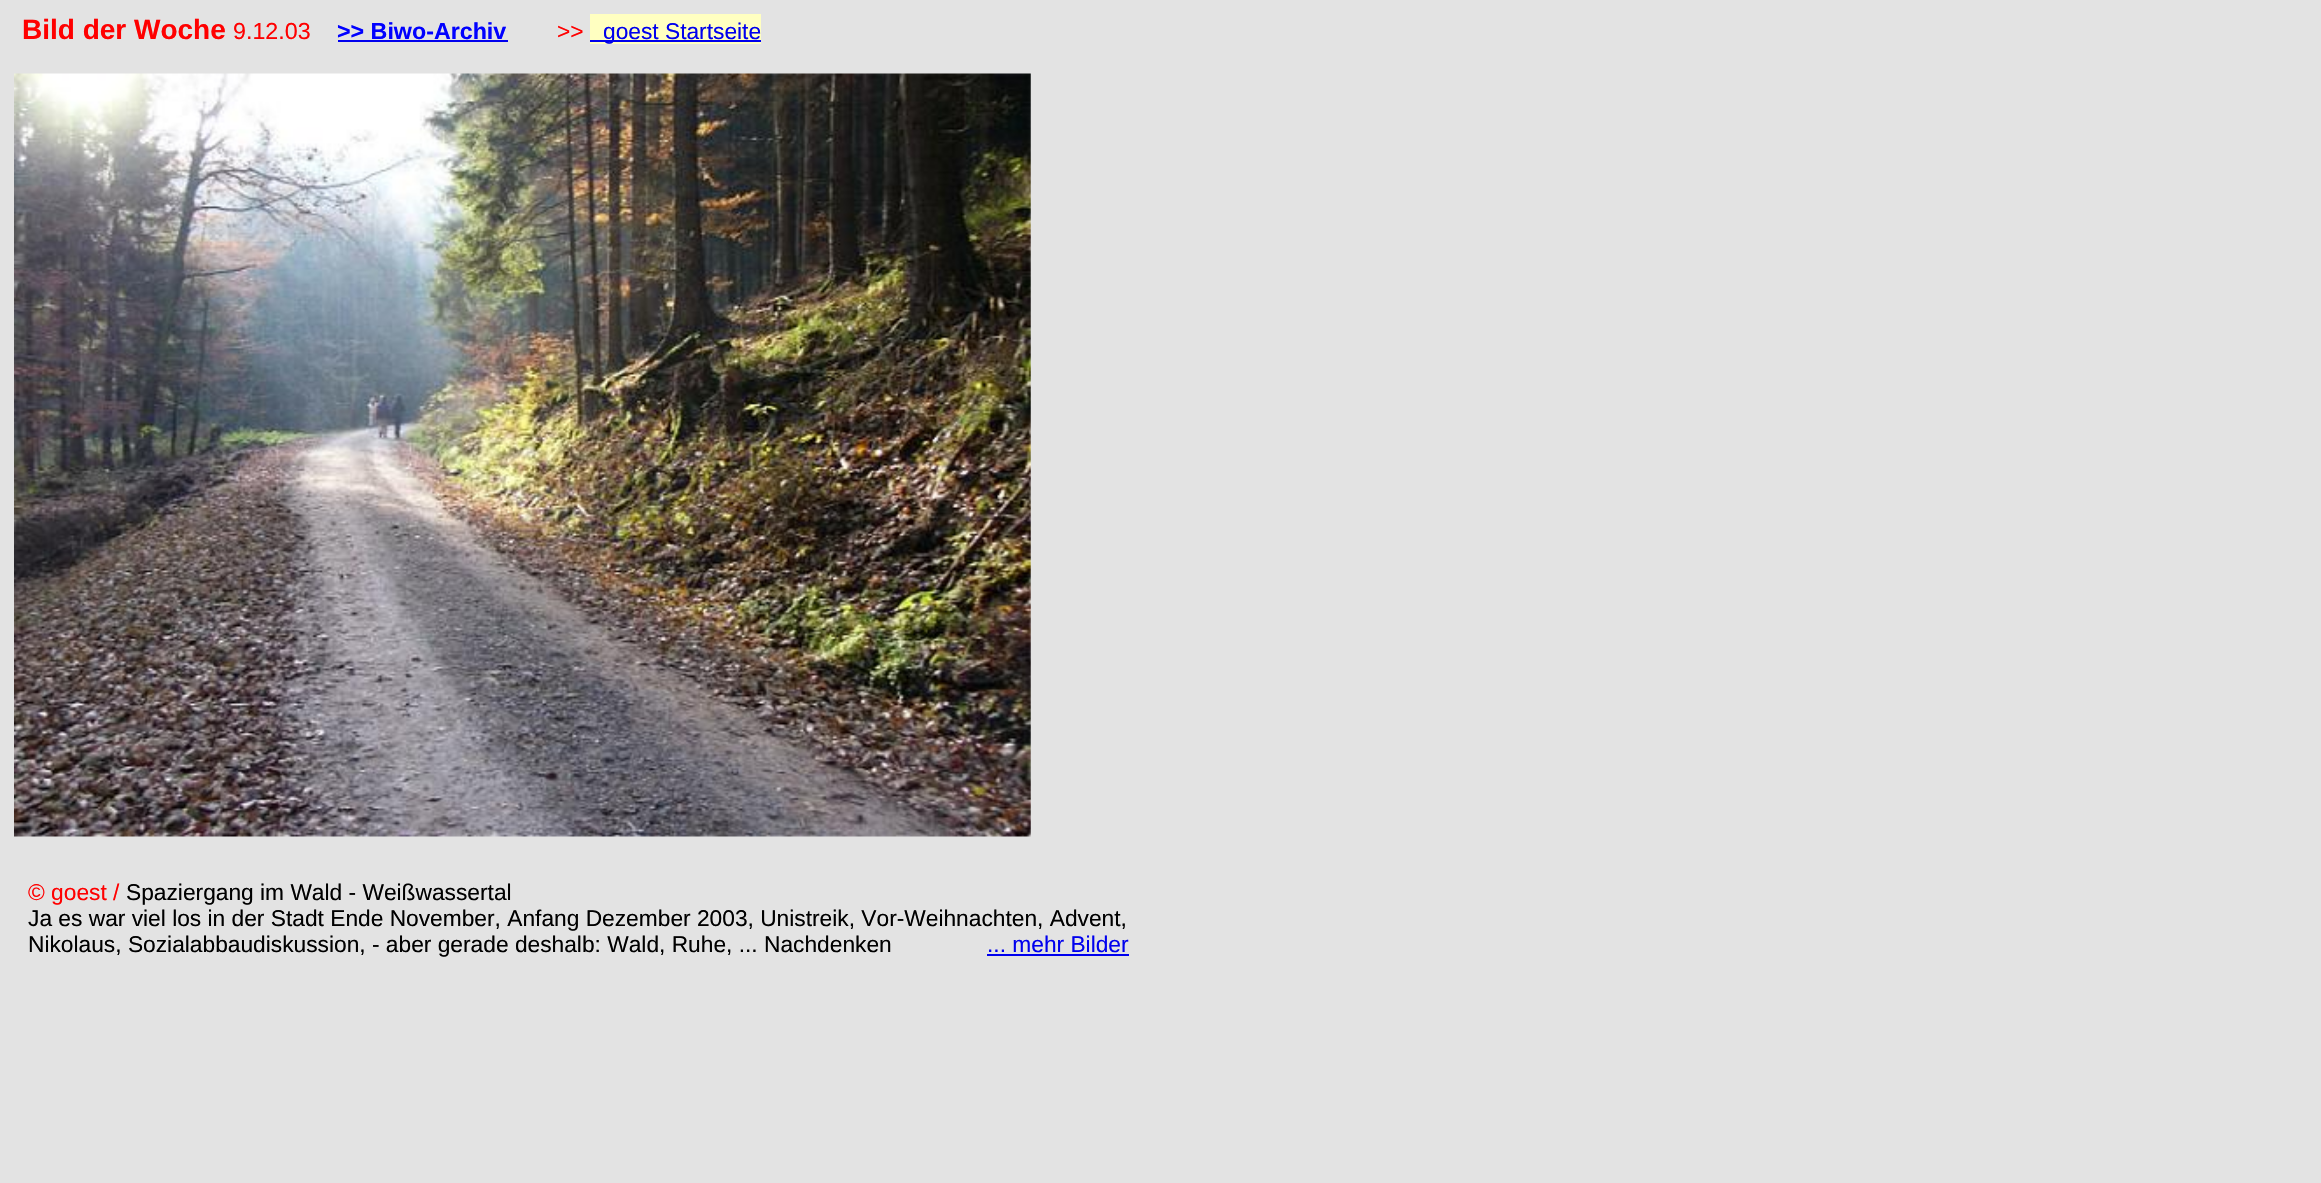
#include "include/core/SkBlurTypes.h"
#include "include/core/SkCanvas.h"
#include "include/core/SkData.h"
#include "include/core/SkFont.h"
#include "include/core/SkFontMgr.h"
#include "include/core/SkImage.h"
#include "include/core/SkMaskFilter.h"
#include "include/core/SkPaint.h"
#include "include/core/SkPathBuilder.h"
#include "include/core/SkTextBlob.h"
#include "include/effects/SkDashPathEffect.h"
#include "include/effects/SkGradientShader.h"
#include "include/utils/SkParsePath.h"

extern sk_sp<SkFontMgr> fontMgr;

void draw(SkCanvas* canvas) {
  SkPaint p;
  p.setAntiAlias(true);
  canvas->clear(SkColorSetRGB(227, 227, 227));
  p.setColor(SkColorSetRGB(0, 0, 238));
  canvas->drawRect(SkRect::MakeLTRB(338, 40, 508, 42), p);
  p.setColor(SkColorSetRGB(255, 255, 193));
  canvas->drawRect(SkRect::MakeLTRB(590, 14, 761, 44), p);
  p.setColor(SkColorSetRGB(0, 0, 238));
  canvas->drawRect(SkRect::MakeLTRB(590, 40, 761, 42), p);
  canvas->drawImageRect(SkImages::DeferredFromEncodedData(SkData::MakeFromFileName("images/1.png")), SkRect::MakeLTRB(14, 73, 1031, 837), SkSamplingOptions());
  canvas->drawRect(SkRect::MakeLTRB(987, 954, 1129, 956), p);
  SkFont font1(fontMgr->matchFamilyStyle("Liberation Sans", SkFontStyle::Bold()), 28);
  font1.setSubpixel(true);
  p.setColor(SkColorSetRGB(255, 0, 0));
  canvas->drawString("Bild der Woche", 22, 39, font1, p);
  SkFont font2(fontMgr->matchFamilyStyle("Liberation Sans", SkFontStyle::Normal()), 23.25f);
  font2.setSubpixel(true);
  canvas->drawString("9.12.03", 233, 39, font2, p);
  SkFont font3(fontMgr->matchFamilyStyle("Liberation Sans", SkFontStyle::Bold()), 23.25f);
  font3.setSubpixel(true);
  p.setColor(SkColorSetRGB(0, 0, 255));
  canvas->drawString(">> Biwo-Archiv", 337, 39, font3, p);
  SkFont font4(fontMgr->matchFamilyStyle("Liberation Sans", SkFontStyle::Normal()), 22.75f);
  font4.setSubpixel(true);
  p.setColor(SkColorSetRGB(255, 0, 0));
  canvas->drawString(">>", 557, 39, font4, p);
  p.setColor(SkColorSetRGB(0, 0, 238));
  canvas->drawString("goest Startseite", 603, 39, font4, p);
  p.setColor(SkColorSetRGB(255, 0, 0));
  canvas->drawString("© goest /", 28, 900, font4, p);
  p.setColor(SK_ColorBLACK);
  canvas->drawString("Spaziergang im Wald - Weißwassertal", 126, 900, font4, p);
  canvas->drawString("Ja es war viel los in der Stadt Ende November, Anfang Dezember 2003, Unistreik, Vor-Weihnachten, Advent,", 28, 926, font4, p);
  canvas->drawString("Nikolaus, Sozialabbaudiskussion, - aber gerade deshalb: Wald, Ruhe, ... Nachdenken", 28, 952, font4, p);
  p.setColor(SkColorSetRGB(0, 0, 238));
  canvas->drawString("... mehr Bilder", 987, 952, font4, p);
}
